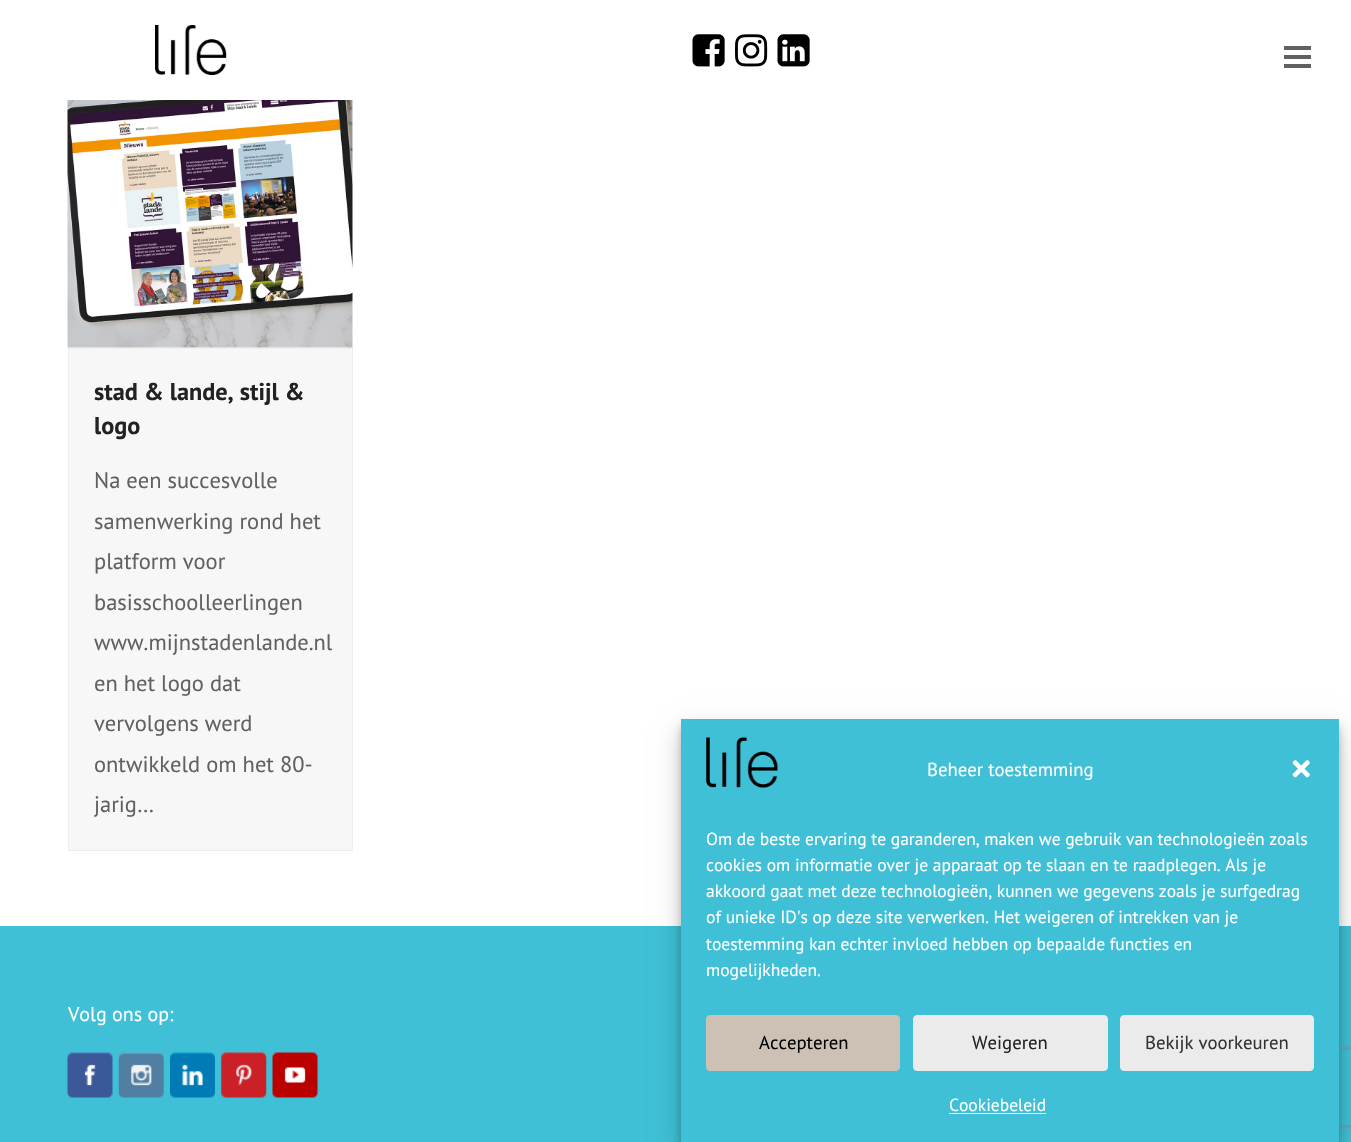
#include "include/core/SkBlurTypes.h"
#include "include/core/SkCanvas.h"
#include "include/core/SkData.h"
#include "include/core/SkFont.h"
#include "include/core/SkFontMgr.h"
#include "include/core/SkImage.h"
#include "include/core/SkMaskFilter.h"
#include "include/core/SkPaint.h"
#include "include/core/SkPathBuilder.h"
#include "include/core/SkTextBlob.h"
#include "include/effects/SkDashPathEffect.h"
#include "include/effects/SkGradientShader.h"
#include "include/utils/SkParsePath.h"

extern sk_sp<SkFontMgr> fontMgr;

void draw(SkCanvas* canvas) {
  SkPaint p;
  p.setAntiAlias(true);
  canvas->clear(SK_ColorWHITE);
  canvas->drawImageRect(SkImages::DeferredFromEncodedData(SkData::MakeFromFileName("images/1.png")), SkRect::MakeLTRB(155, 25, 227, 75), SkSamplingOptions());
  canvas->drawImageRect(SkImages::DeferredFromEncodedData(SkData::MakeFromFileName("images/2.png")), SkRect::MakeLTRB(692, 34, 725, 67), SkSamplingOptions());
  canvas->drawImageRect(SkImages::DeferredFromEncodedData(SkData::MakeFromFileName("images/3.png")), SkRect::MakeLTRB(735, 34, 768, 67), SkSamplingOptions());
  canvas->drawImageRect(SkImages::DeferredFromEncodedData(SkData::MakeFromFileName("images/4.png")), SkRect::MakeLTRB(777, 34, 810, 67), SkSamplingOptions());
  p.setColor(SkColorSetRGB(97, 97, 97));
  canvas->drawRect(SkRect::MakeLTRB(1284, 55, 1311, 59), p);
  canvas->drawRect(SkRect::MakeLTRB(1284, 46, 1311, 50), p);
  canvas->drawRect(SkRect::MakeLTRB(1284, 64, 1311, 68), p);
  canvas->drawImageRect(SkImages::DeferredFromEncodedData(SkData::MakeFromFileName("images/5.png")), SkRect::MakeLTRB(67, 100, 353, 348), SkSamplingOptions());
  p.setColor(SkColorSetRGB(247, 247, 247));
  canvas->drawRect(SkRect::MakeLTRB(68.5f, 348.5f, 352.5f, 850.5f), p);
  p.setStyle(SkPaint::kStroke_Style);
  p.setStrokeWidth(1);
  p.setColor(SkColorSetRGB(238, 238, 238));
  canvas->drawRect(SkRect::MakeLTRB(68.5f, 348.5f, 352.5f, 850.5f), p);
  p.setStyle(SkPaint::kFill_Style);
  p.setColor(SkColorSetRGB(63, 192, 214));
  canvas->drawRect(SkRect::MakeLTRB(0, 926, 1351, 1142), p);
  canvas->drawImageRect(SkImages::DeferredFromEncodedData(SkData::MakeFromFileName("images/6.png")), SkRect::MakeLTRB(67, 1052, 113, 1098), SkSamplingOptions());
  canvas->drawImageRect(SkImages::DeferredFromEncodedData(SkData::MakeFromFileName("images/7.png")), SkRect::MakeLTRB(118, 1052, 164, 1098), SkSamplingOptions());
  canvas->drawImageRect(SkImages::DeferredFromEncodedData(SkData::MakeFromFileName("images/8.png")), SkRect::MakeLTRB(170, 1052, 215, 1098), SkSamplingOptions());
  canvas->drawImageRect(SkImages::DeferredFromEncodedData(SkData::MakeFromFileName("images/9.png")), SkRect::MakeLTRB(221, 1052, 267, 1098), SkSamplingOptions());
  canvas->drawImageRect(SkImages::DeferredFromEncodedData(SkData::MakeFromFileName("images/10.png")), SkRect::MakeLTRB(272, 1052, 318, 1098), SkSamplingOptions());
  p.setColor(SkColorSetARGB(59, 0, 0, 0));
  p.setMaskFilter(SkMaskFilter::MakeBlur(kNormal_SkBlurStyle, 4));
  canvas->drawRect(SkRect::MakeLTRB(681, 726, 1339, 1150), p);
  p.setMaskFilter(nullptr);
  p.setColor(SkColorSetARGB(48, 0, 0, 0));
  p.setMaskFilter(SkMaskFilter::MakeBlur(kNormal_SkBlurStyle, 12.5f));
  canvas->drawRect(SkRect::MakeLTRB(681, 731, 1339, 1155), p);
  p.setMaskFilter(nullptr);
  canvas->save();
  canvas->clipPath(SkPathBuilder(SkPathFillType::kEvenOdd).moveTo(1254, 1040).lineTo(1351, 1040).lineTo(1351, 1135).lineTo(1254, 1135).close().moveTo(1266.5f, 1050).lineTo(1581.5f, 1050).cubicTo(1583, 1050, 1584, 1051, 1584, 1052.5f).lineTo(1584, 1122.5f).cubicTo(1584, 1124, 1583, 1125, 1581.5f, 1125).lineTo(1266.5f, 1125).cubicTo(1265, 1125, 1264, 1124, 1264, 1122.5f).lineTo(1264, 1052.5f).cubicTo(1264, 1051, 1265, 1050, 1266.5f, 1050).close().detach(), true);
  p.setColor(SkColorSetRGB(128, 128, 128));
  p.setMaskFilter(SkMaskFilter::MakeBlur(kNormal_SkBlurStyle, 3));
  canvas->drawRoundRect(SkRect::MakeLTRB(1264, 1050, 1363, 1125), 2.5f, 2.5f, p);
  p.setMaskFilter(nullptr);
  canvas->restore();
  p.setColor(SkColorSetRGB(63, 192, 214));
  canvas->drawRect(SkRect::MakeLTRB(681, 719, 1339, 1142), p);
  canvas->drawImageRect(SkImages::DeferredFromEncodedData(SkData::MakeFromFileName("images/11.png")), SkRect::MakeLTRB(706, 737, 778, 788), SkSamplingOptions());
  canvas->drawImageRect(SkImages::DeferredFromEncodedData(SkData::MakeFromFileName("images/12.png")), SkRect::MakeLTRB(1292, 760, 1310, 778), SkSamplingOptions());
  p.setColor(SkColorSetRGB(204, 193, 180));
  canvas->drawRoundRect(SkRect::MakeLTRB(706.5f, 1015.5f, 899.5f, 1070.5f), 3.5f, 3.5f, p);
  p.setStyle(SkPaint::kStroke_Style);
  canvas->drawRoundRect(SkRect::MakeLTRB(706.5f, 1015.5f, 899.5f, 1070.5f), 3.5f, 3.5f, p);
  p.setStyle(SkPaint::kFill_Style);
  p.setColor(SkColorSetRGB(235, 235, 235));
  canvas->drawRoundRect(SkRect::MakeLTRB(913.5f, 1015.5f, 1107.5f, 1070.5f), 3.5f, 3.5f, p);
  p.setStyle(SkPaint::kStroke_Style);
  canvas->drawRoundRect(SkRect::MakeLTRB(913.5f, 1015.5f, 1107.5f, 1070.5f), 3.5f, 3.5f, p);
  p.setStyle(SkPaint::kFill_Style);
  canvas->drawRoundRect(SkRect::MakeLTRB(1120.5f, 1015.5f, 1313.5f, 1070.5f), 3.5f, 3.5f, p);
  p.setStyle(SkPaint::kStroke_Style);
  canvas->drawRoundRect(SkRect::MakeLTRB(1120.5f, 1015.5f, 1313.5f, 1070.5f), 3.5f, 3.5f, p);
  p.setStyle(SkPaint::kFill_Style);
  p.setColor(SK_ColorWHITE);
  canvas->drawRect(SkRect::MakeLTRB(949, 1113, 1046, 1114), p);
  SkFont font1(fontMgr->matchFamilyStyle("PT Sans", SkFontStyle::Bold()), 24.25f);
  font1.setSubpixel(true);
  p.setColor(SkColorSetRGB(34, 34, 34));
  canvas->drawString("stad & lande, stijl &", 94, 400, font1, p);
  canvas->drawString("logo", 94, 434, font1, p);
  SkFont font2(fontMgr->matchFamilyStyle("PT Sans", SkFontStyle::Normal()), 22.5f);
  font2.setSubpixel(true);
  p.setColor(SkColorSetRGB(97, 97, 97));
  canvas->drawString("Na een succesvolle", 94, 488, font2, p);
  canvas->drawString("samenwerking rond het", 94, 529, font2, p);
  canvas->drawString("platform voor", 94, 569, font2, p);
  canvas->drawString("basisschoolleerlingen", 94, 610, font2, p);
  canvas->drawString("www.mijnstadenlande.nl", 94, 650, font2, p);
  canvas->drawString("en het logo dat", 94, 691, font2, p);
  canvas->drawString("vervolgens werd", 94, 731, font2, p);
  canvas->drawString("ontwikkeld om het 80-", 94, 772, font2, p);
  canvas->drawString("jarig…", 94, 812, font2, p);
  SkFont font3(fontMgr->matchFamilyStyle("PT Sans", SkFontStyle::Normal()), 20);
  font3.setSubpixel(true);
  p.setColor(SK_ColorWHITE);
  canvas->drawString("Volg ons op:", 68, 1021, font3, p);
  SkFont font4(fontMgr->matchFamilyStyle("PT Sans", SkFontStyle::Normal()), 18.75f);
  font4.setSubpixel(true);
  canvas->drawString("Beheer toestemming", 927, 776, font4, p);
  SkFont font5(fontMgr->matchFamilyStyle("PT Sans", SkFontStyle::Normal()), 17.5f);
  font5.setSubpixel(true);
  canvas->drawString("Om de beste ervaring te garanderen, maken we gebruik van technologieën zoals", 706, 845, font5, p);
  canvas->drawString("cookies om informatie over je apparaat op te slaan en te raadplegen. Als je", 706, 871, font5, p);
  canvas->drawString("akkoord gaat met deze technologieën, kunnen we gegevens zoals je surfgedrag", 706, 897, font5, p);
  canvas->drawString("of unieke ID's op deze site verwerken. Het weigeren of intrekken van je", 706, 923, font5, p);
  canvas->drawString("toestemming kan echter invloed hebben op bepaalde functies en", 706, 950, font5, p);
  canvas->drawString("mogelijkheden.", 706, 976, font5, p);
  p.setColor(SK_ColorBLACK);
  canvas->drawString("Accepteren", 759, 1049, font4, p);
  p.setColor(SkColorSetRGB(34, 34, 34));
  canvas->drawString("Weigeren", 972, 1049, font4, p);
  p.setColor(SkColorSetRGB(51, 51, 51));
  canvas->drawString("Bekijk voorkeuren", 1145, 1049, font4, p);
  p.setColor(SK_ColorWHITE);
  canvas->drawString("Cookiebeleid", 949, 1111, font5, p);
}
